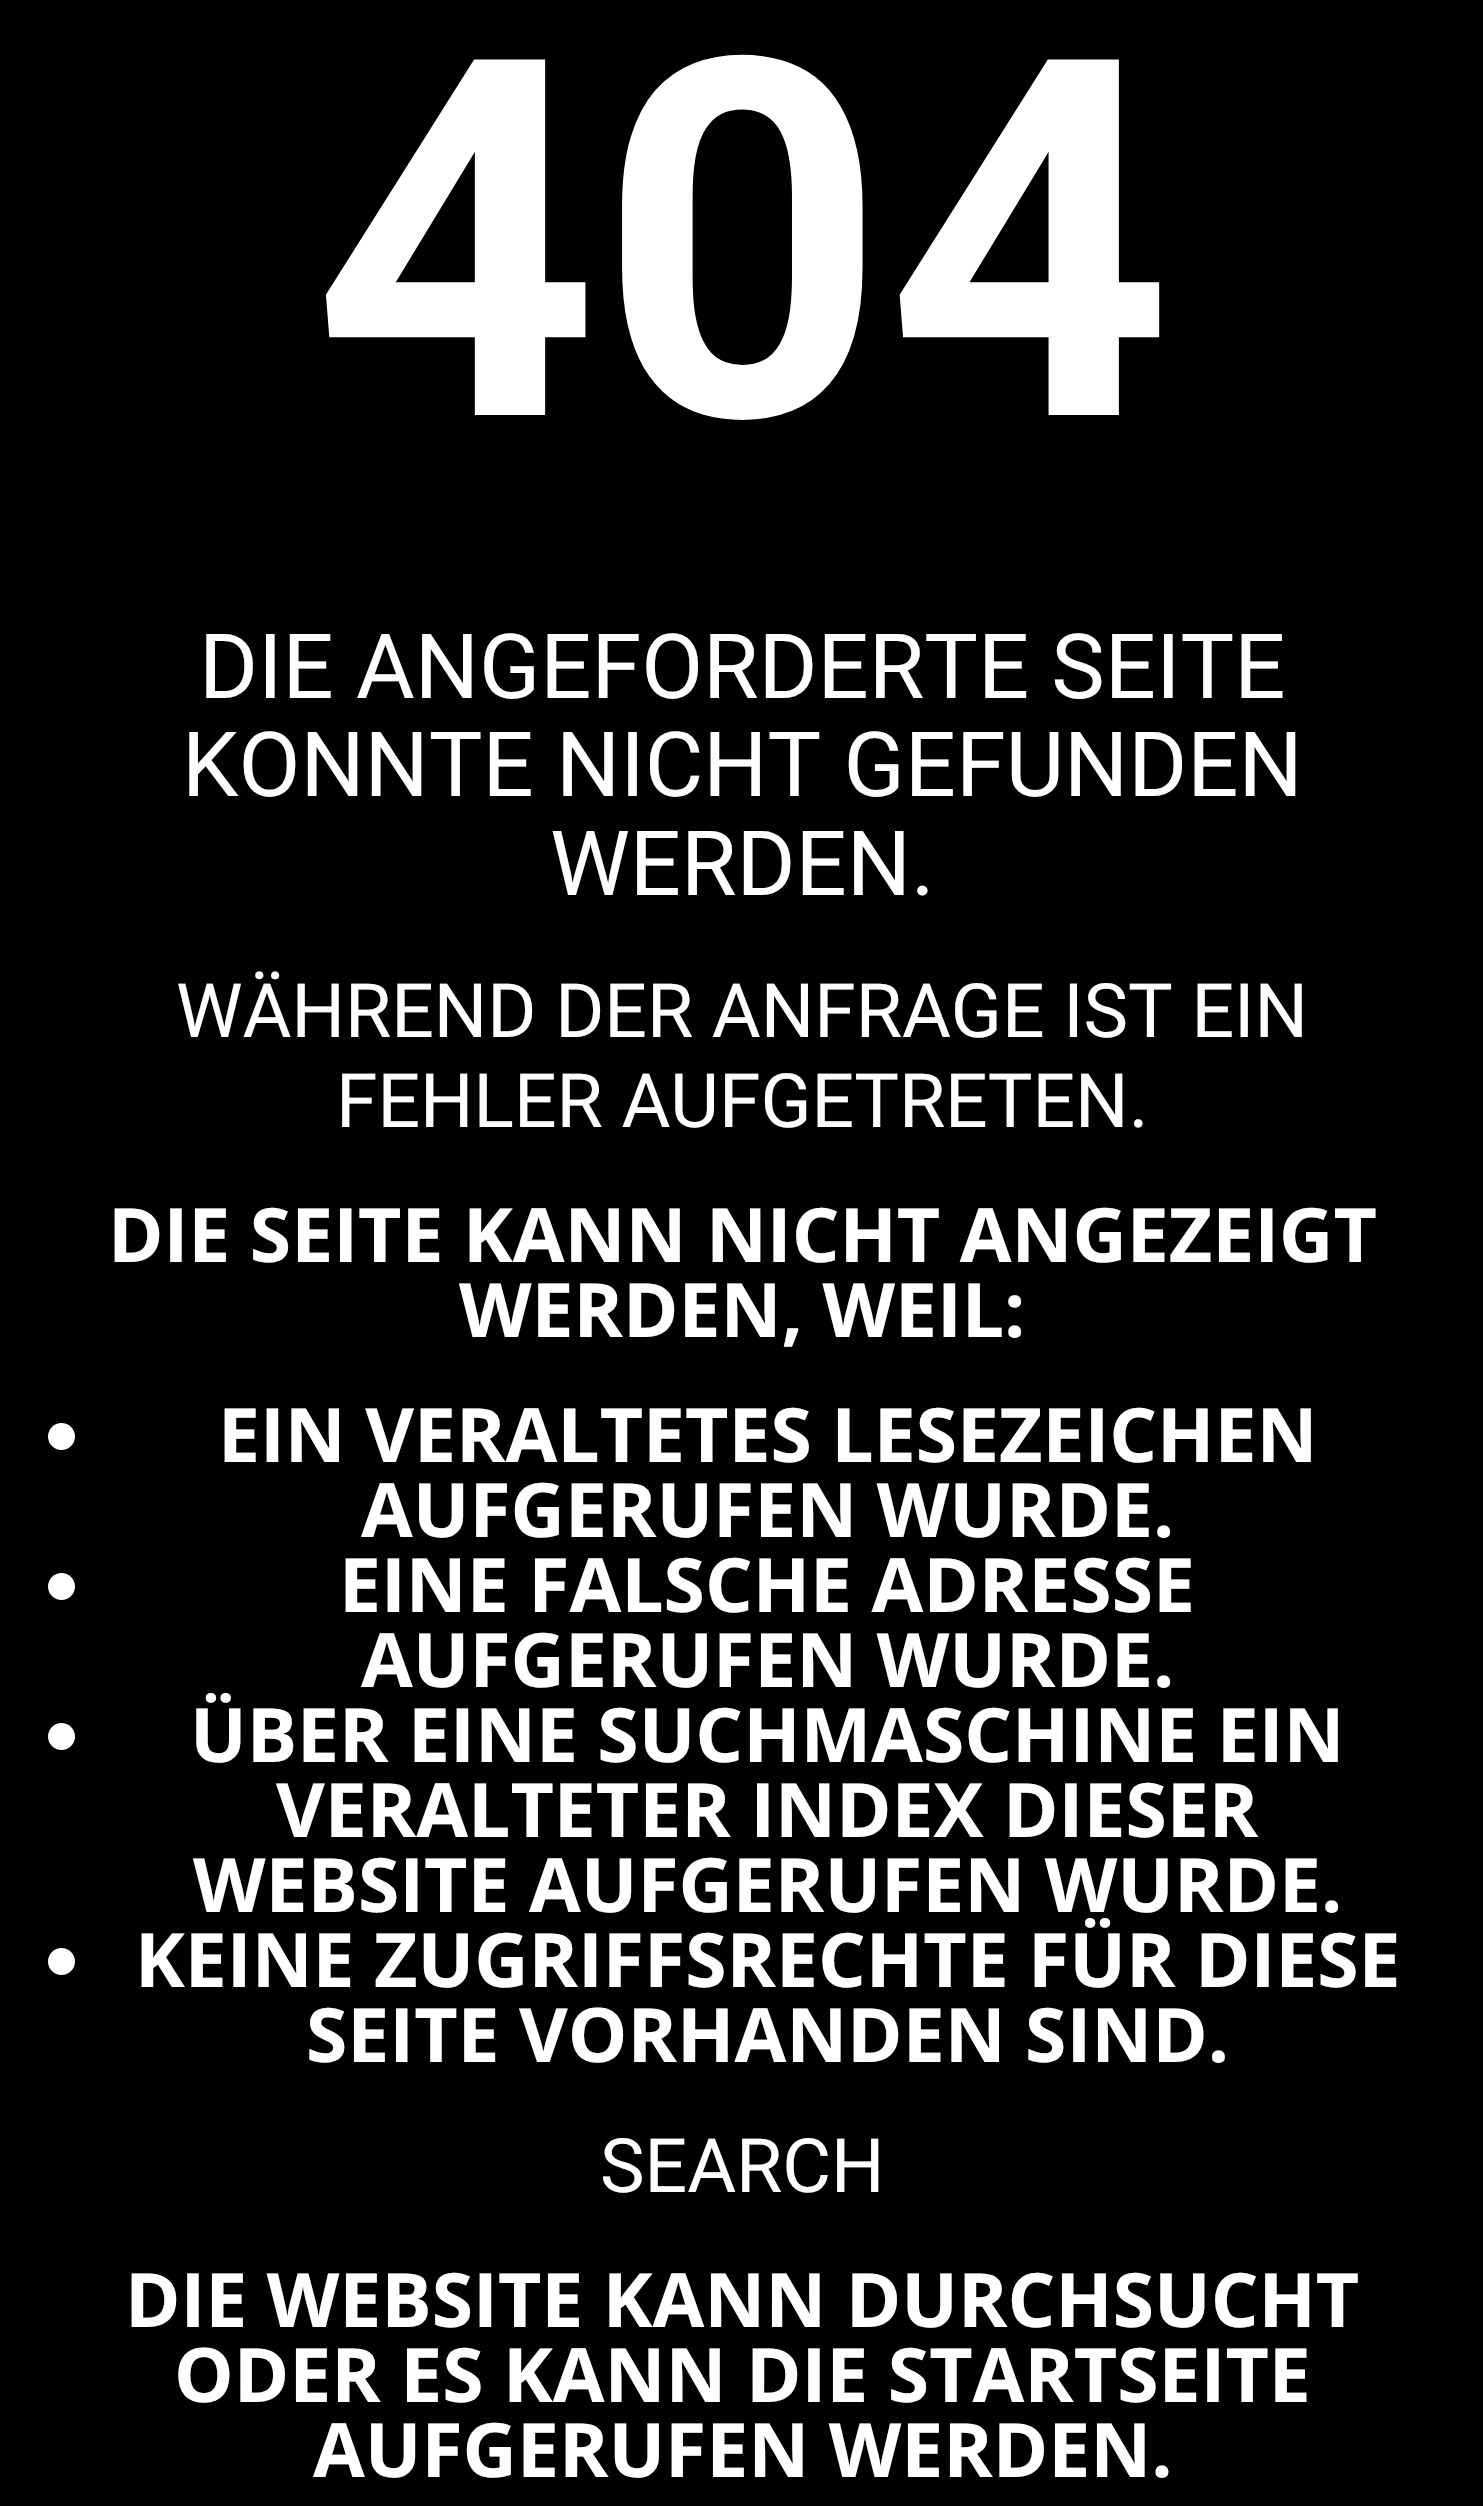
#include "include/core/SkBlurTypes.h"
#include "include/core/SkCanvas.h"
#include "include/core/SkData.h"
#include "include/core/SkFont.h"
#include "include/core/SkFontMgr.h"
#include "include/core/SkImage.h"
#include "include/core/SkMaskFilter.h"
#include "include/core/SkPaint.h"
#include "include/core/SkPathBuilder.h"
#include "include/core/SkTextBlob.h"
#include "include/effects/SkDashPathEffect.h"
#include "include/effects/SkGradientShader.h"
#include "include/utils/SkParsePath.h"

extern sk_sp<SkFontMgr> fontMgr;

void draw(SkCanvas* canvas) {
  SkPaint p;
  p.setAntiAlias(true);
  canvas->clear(SK_ColorBLACK);
  p.setColor(SK_ColorWHITE);
  canvas->drawCircle(61.5f, 1436.5f, 13.5f, p);
  canvas->drawCircle(61.5f, 1586.5f, 13.5f, p);
  canvas->drawCircle(61.5f, 1736.5f, 13.5f, p);
  canvas->drawCircle(61.5f, 1961.5f, 13.5f, p);
  SkFont font1(fontMgr->matchFamilyStyle("Roboto", SkFontStyle::Bold()), 500);
  font1.setSubpixel(true);
  canvas->drawString("404", 312, 415, font1, p);
  SkFont font2(fontMgr->matchFamilyStyle("Roboto", SkFontStyle::Normal()), 90);
  font2.setSubpixel(true);
  canvas->drawString("DIE ANGEFORDERTE SEITE", 199, 698, font2, p);
  canvas->drawString("KONNTE NICHT GEFUNDEN", 182, 796, font2, p);
  canvas->drawString("WERDEN.", 550, 895, font2, p);
  SkFont font3(fontMgr->matchFamilyStyle("Roboto", SkFontStyle::Normal()), 75);
  font3.setSubpixel(true);
  canvas->drawString("WÄHREND DER ANFRAGE IST EIN", 176, 1037, font3, p);
  canvas->drawString("FEHLER AUFGETRETEN.", 336, 1127, font3, p);
  SkFont font4(fontMgr->matchFamilyStyle("Open Sans", SkFontStyle::Bold()), 75);
  font4.setSubpixel(true);
  canvas->drawString("DIE SEITE KANN NICHT ANGEZEIGT", 108, 1262, font4, p);
  canvas->drawString("WERDEN, WEIL:", 459, 1337, font4, p);
  canvas->drawString("EIN VERALTETES LESEZEICHEN", 218, 1462, font4, p);
  canvas->drawString("AUFGERUFEN WURDE.", 361, 1537, font4, p);
  canvas->drawString("EINE FALSCHE ADRESSE", 339, 1612, font4, p);
  canvas->drawString("AUFGERUFEN WURDE.", 361, 1687, font4, p);
  canvas->drawString("ÜBER EINE SUCHMASCHINE EIN", 190, 1762, font4, p);
  canvas->drawString("VERALTETER INDEX DIESER", 276, 1837, font4, p);
  canvas->drawString("WEBSITE AUFGERUFEN WURDE.", 193, 1912, font4, p);
  canvas->drawString("KEINE ZUGRIFFSRECHTE FÜR DIESE", 135, 1987, font4, p);
  canvas->drawString("SEITE VORHANDEN SIND.", 306, 2062, font4, p);
  canvas->drawString("SEARCH", 600, 2192, font3, p);
  canvas->drawString("DIE WEBSITE KANN DURCHSUCHT", 125, 2327, font4, p);
  canvas->drawString("ODER ES KANN DIE STARTSEITE", 174, 2402, font4, p);
  canvas->drawString("AUFGERUFEN WERDEN.", 313, 2477, font4, p);
}
